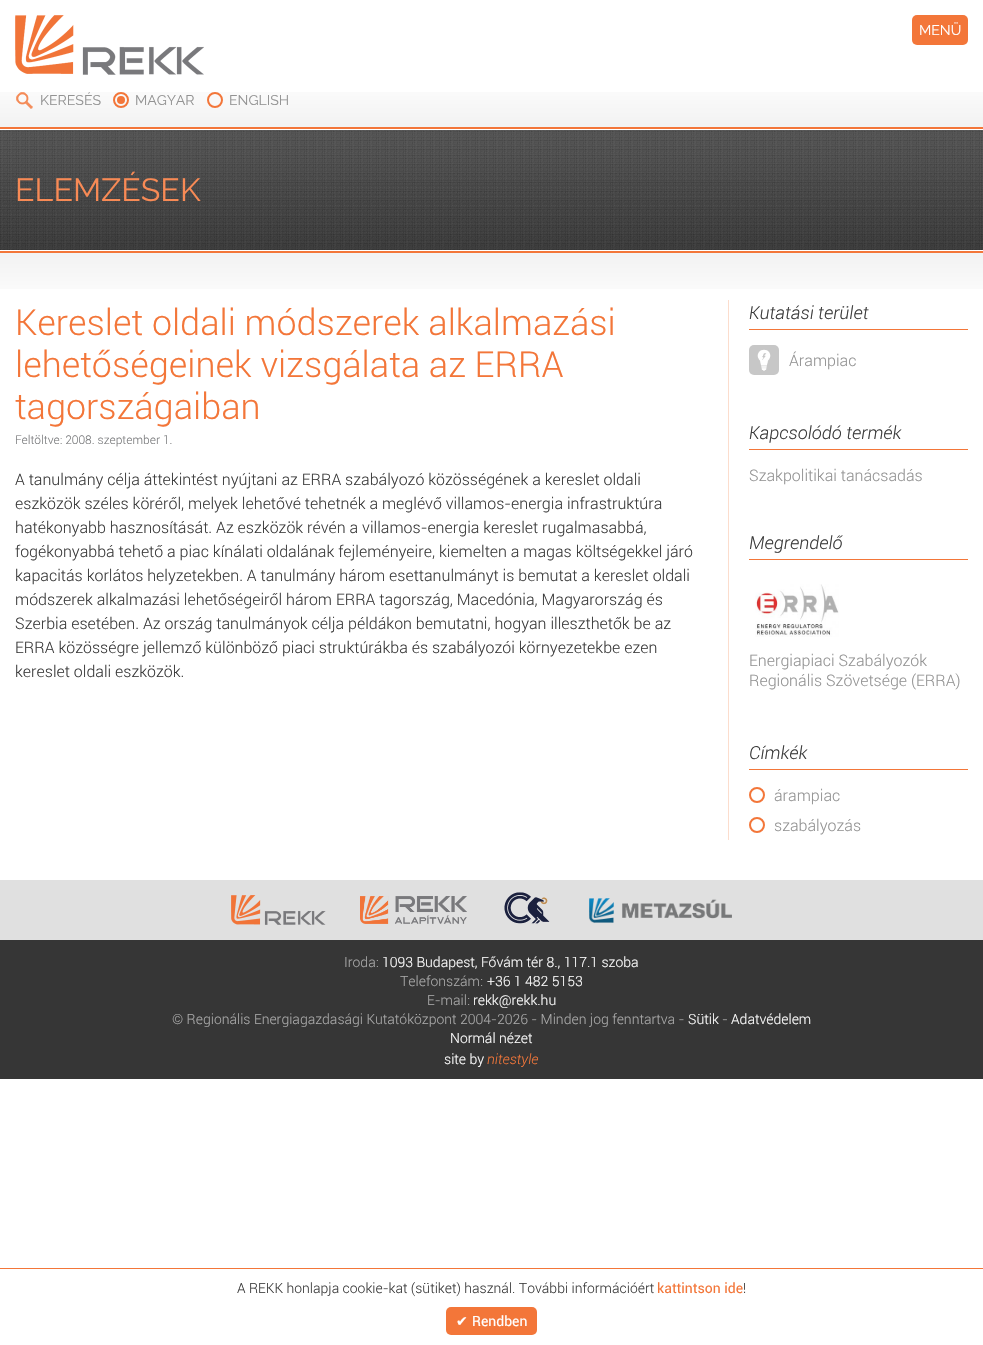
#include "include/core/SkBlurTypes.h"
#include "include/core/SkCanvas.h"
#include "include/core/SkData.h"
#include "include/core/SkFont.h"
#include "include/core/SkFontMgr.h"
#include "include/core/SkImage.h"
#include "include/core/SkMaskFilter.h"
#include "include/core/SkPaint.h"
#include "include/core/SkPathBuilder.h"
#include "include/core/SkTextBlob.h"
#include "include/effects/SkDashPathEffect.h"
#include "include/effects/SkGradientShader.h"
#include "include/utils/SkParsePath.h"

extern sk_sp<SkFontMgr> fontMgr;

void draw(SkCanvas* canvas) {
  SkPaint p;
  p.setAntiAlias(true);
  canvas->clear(SK_ColorWHITE);
  canvas->drawImageRect(SkImages::DeferredFromEncodedData(SkData::MakeFromFileName("images/1.png")), SkRect::MakeLTRB(0, 92, 983, 129), SkSamplingOptions());
  canvas->drawImageRect(SkImages::DeferredFromEncodedData(SkData::MakeFromFileName("images/2.png")), SkRect::MakeLTRB(15, 15, 204, 75), SkSamplingOptions());
  p.setColor(SkColorSetRGB(243, 118, 57));
  canvas->drawRoundRect(SkRect::MakeLTRB(912, 15, 968, 45), 5, 5, p);
  canvas->drawImageRect(SkImages::DeferredFromEncodedData(SkData::MakeFromFileName("images/3.png")), SkRect::MakeLTRB(16, 92, 33, 109), SkSamplingOptions());
  p.setStyle(SkPaint::kStroke_Style);
  p.setStrokeWidth(2);
  canvas->drawCircle(121, 100, 7, p);
  p.setStyle(SkPaint::kFill_Style);
  canvas->drawCircle(121, 100, 4, p);
  p.setStyle(SkPaint::kStroke_Style);
  canvas->drawCircle(215, 100, 7, p);
  canvas->drawImageRect(SkImages::DeferredFromEncodedData(SkData::MakeFromFileName("images/4.png")), SkRect::MakeLTRB(0, 130, 983, 250), SkSamplingOptions());
  canvas->drawImageRect(SkImages::DeferredFromEncodedData(SkData::MakeFromFileName("images/5.png")), SkRect::MakeLTRB(0, 251, 983, 289), SkSamplingOptions());
  p.setStyle(SkPaint::kFill_Style);
  p.setColor(SkColorSetRGB(252, 221, 205));
  canvas->drawRect(SkRect::MakeLTRB(728, 300, 729, 840), p);
  p.setColor(SkColorSetRGB(243, 118, 57));
  canvas->drawRect(SkRect::MakeLTRB(749, 329, 968, 330), p);
  p.setColor(SkColorSetRGB(199, 199, 199));
  canvas->drawRoundRect(SkRect::MakeLTRB(749, 345, 779, 375), 5, 5, p);
  canvas->drawImageRect(SkImages::DeferredFromEncodedData(SkData::MakeFromFileName("images/6.png")), SkRect::MakeLTRB(757, 349, 771, 371), SkSamplingOptions());
  p.setColor(SkColorSetRGB(243, 118, 57));
  canvas->drawRect(SkRect::MakeLTRB(749, 449, 968, 450), p);
  canvas->drawRect(SkRect::MakeLTRB(749, 559, 968, 560), p);
  canvas->drawImageRect(SkImages::DeferredFromEncodedData(SkData::MakeFromFileName("images/7.png")), SkRect::MakeLTRB(755, 584, 839, 637), SkSamplingOptions());
  canvas->drawRect(SkRect::MakeLTRB(749, 769, 968, 770), p);
  p.setStyle(SkPaint::kStroke_Style);
  canvas->drawCircle(757, 795, 7, p);
  canvas->drawCircle(757, 825, 7, p);
  p.setStyle(SkPaint::kFill_Style);
  p.setColor(SkColorSetRGB(224, 224, 224));
  canvas->drawRect(SkRect::MakeLTRB(0, 880, 983, 940), p);
  canvas->drawImageRect(SkImages::DeferredFromEncodedData(SkData::MakeFromFileName("images/8.png")), SkRect::MakeLTRB(231, 895, 326, 925), SkSamplingOptions());
  canvas->drawImageRect(SkImages::DeferredFromEncodedData(SkData::MakeFromFileName("images/9.png")), SkRect::MakeLTRB(360, 896, 467, 924), SkSamplingOptions());
  canvas->drawImageRect(SkImages::DeferredFromEncodedData(SkData::MakeFromFileName("images/10.png")), SkRect::MakeLTRB(504, 892, 550, 924), SkSamplingOptions());
  canvas->drawImageRect(SkImages::DeferredFromEncodedData(SkData::MakeFromFileName("images/11.png")), SkRect::MakeLTRB(589, 898, 732, 923), SkSamplingOptions());
  p.setColor(SkColorSetRGB(54, 54, 54));
  canvas->drawRect(SkRect::MakeLTRB(0, 940, 983, 1079), p);
  p.setColor(SkColorSetRGB(243, 118, 57));
  canvas->drawRect(SkRect::MakeLTRB(0, 1268, 983, 1269), p);
  canvas->drawRoundRect(SkRect::MakeLTRB(446, 1307, 537, 1335), 5, 5, p);
  SkFont font1(fontMgr->matchFamilyStyle("Raleway", SkFontStyle::Normal()), 14);
  font1.setSubpixel(true);
  p.setColor(SK_ColorWHITE);
  canvas->drawString("MENÜ", 919, 35, font1, p);
  p.setColor(SkColorSetRGB(147, 147, 147));
  canvas->drawString("KERESÉS", 40, 105, font1, p);
  canvas->drawString("MAGYAR", 135, 105, font1, p);
  canvas->drawString("ENGLISH", 229, 105, font1, p);
  SkFont font2(fontMgr->matchFamilyStyle("Raleway", SkFontStyle::Normal()), 32);
  font2.setSubpixel(true);
  p.setColor(SkColorSetRGB(248, 138, 85));
  canvas->drawString("ELEMZÉSEK", 15, 201, font2, p);
  SkFont font3(fontMgr->matchFamilyStyle("Roboto", SkFontStyle(300, SkFontStyle::kNormal_Width, SkFontStyle::kUpright_Slant)), 36);
  font3.setSubpixel(true);
  p.setColor(SkColorSetRGB(243, 118, 57));
  canvas->drawString("Kereslet oldali módszerek alkalmazási", 15, 335, font3, p);
  canvas->drawString("lehetőségeinek vizsgálata az ERRA", 15, 377, font3, p);
  canvas->drawString("tagországaiban", 15, 419, font3, p);
  SkFont font4(fontMgr->matchFamilyStyle("Roboto", SkFontStyle(300, SkFontStyle::kNormal_Width, SkFontStyle::kUpright_Slant)), 12);
  font4.setSubpixel(true);
  p.setColor(SkColorSetRGB(121, 122, 124));
  canvas->drawString("Feltöltve: 2008. szeptember 1.", 15, 444, font4, p);
  SkFont font5(fontMgr->matchFamilyStyle("Roboto", SkFontStyle(300, SkFontStyle::kNormal_Width, SkFontStyle::kUpright_Slant)), 16);
  font5.setSubpixel(true);
  p.setColor(SkColorSetRGB(60, 60, 60));
  canvas->drawString("A tanulmány célja áttekintést nyújtani az ERRA szabályozó közösségének a kereslet oldali", 15, 485, font5, p);
  canvas->drawString("eszközök széles köréről, melyek lehetővé tehetnék a meglévő villamos-energia infrastruktúra", 15, 509, font5, p);
  canvas->drawString("hatékonyabb hasznosítását. Az eszközök révén a villamos-energia kereslet rugalmasabbá,", 15, 533, font5, p);
  canvas->drawString("fogékonyabbá tehető a piac kínálati oldalának fejleményeire, kiemelten a magas költségekkel járó", 15, 557, font5, p);
  canvas->drawString("kapacitás korlátos helyzetekben. A tanulmány három esettanulmányt is bemutat a kereslet oldali", 15, 581, font5, p);
  canvas->drawString("módszerek alkalmazási lehetőségeiről három ERRA tagország, Macedónia, Magyarország és", 15, 605, font5, p);
  canvas->drawString("Szerbia esetében. Az ország tanulmányok célja példákon bemutatni, hogyan illeszthetők be az", 15, 629, font5, p);
  canvas->drawString("ERRA közösségre jellemző különböző piaci struktúrákba és szabályozói környezetekbe ezen", 15, 653, font5, p);
  canvas->drawString("kereslet oldali eszközök.", 15, 677, font5, p);
  SkFont font6(fontMgr->matchFamilyStyle("Roboto", SkFontStyle(300, SkFontStyle::kNormal_Width, SkFontStyle::kItalic_Slant)), 18);
  font6.setSubpixel(true);
  canvas->drawString("Kutatási terület", 749, 319, font6, p);
  p.setColor(SkColorSetRGB(147, 147, 147));
  canvas->drawString("Árampiac", 789, 366, font5, p);
  p.setColor(SkColorSetRGB(60, 60, 60));
  canvas->drawString("Kapcsolódó termék", 749, 439, font6, p);
  p.setColor(SkColorSetRGB(147, 147, 147));
  canvas->drawString("Szakpolitikai tanácsadás", 749, 481, font5, p);
  p.setColor(SkColorSetRGB(60, 60, 60));
  canvas->drawString("Megrendelő", 749, 549, font6, p);
  p.setColor(SkColorSetRGB(147, 147, 147));
  canvas->drawString("Energiapiaci Szabályozók", 749, 666, font5, p);
  canvas->drawString("Regionális Szövetsége (ERRA)", 749, 686, font5, p);
  p.setColor(SkColorSetRGB(60, 60, 60));
  canvas->drawString("Címkék", 749, 759, font6, p);
  p.setColor(SkColorSetRGB(147, 147, 147));
  canvas->drawString("árampiac", 774, 801, font5, p);
  canvas->drawString("szabályozás", 774, 831, font5, p);
  SkFont font7(fontMgr->matchFamilyStyle("Roboto", SkFontStyle(300, SkFontStyle::kNormal_Width, SkFontStyle::kUpright_Slant)), 14);
  font7.setSubpixel(true);
  p.setColor(SkColorSetRGB(169, 169, 169));
  canvas->drawString("Iroda:", 344, 967, font7, p);
  p.setColor(SK_ColorWHITE);
  canvas->drawString("1093 Budapest, Fővám tér 8., 117.1 szoba", 382, 967, font7, p);
  p.setColor(SkColorSetRGB(169, 169, 169));
  canvas->drawString("Telefonszám:", 400, 986, font7, p);
  p.setColor(SK_ColorWHITE);
  canvas->drawString("+36 1 482 5153", 487, 986, font7, p);
  p.setColor(SkColorSetRGB(169, 169, 169));
  canvas->drawString("E-mail:", 427, 1005, font7, p);
  p.setColor(SK_ColorWHITE);
  canvas->drawString("rekk@rekk.hu", 473, 1005, font7, p);
  p.setColor(SkColorSetRGB(169, 169, 169));
  canvas->drawString("© Regionális Energiagazdasági Kutatóközpont 2004-2026 - Minden jog fenntartva -", 172, 1024, font7, p);
  p.setColor(SK_ColorWHITE);
  canvas->drawString("Sütik", 688, 1024, font7, p);
  p.setColor(SkColorSetRGB(169, 169, 169));
  canvas->drawString("-", 722, 1024, font7, p);
  p.setColor(SK_ColorWHITE);
  canvas->drawString("Adatvédelem", 731, 1024, font7, p);
  canvas->drawString("Normál nézet", 450, 1043, font7, p);
  canvas->drawString("site by", 444, 1064, font7, p);
  SkFont font8(fontMgr->matchFamilyStyle("Roboto", SkFontStyle(300, SkFontStyle::kNormal_Width, SkFontStyle::kItalic_Slant)), 14);
  font8.setSubpixel(true);
  p.setColor(SkColorSetRGB(243, 118, 57));
  canvas->drawString("nitestyle", 487, 1064, font8, p);
  p.setColor(SkColorSetRGB(60, 60, 60));
  canvas->drawString("A REKK honlapja cookie-kat (sütiket) használ. További információért", 237, 1293, font7, p);
  SkFont font9(fontMgr->matchFamilyStyle("Roboto", SkFontStyle::Normal()), 14);
  font9.setSubpixel(true);
  p.setColor(SkColorSetRGB(243, 118, 57));
  canvas->drawString("kattintson ide", 657, 1293, font9, p);
  p.setColor(SkColorSetRGB(60, 60, 60));
  canvas->drawString("!", 743, 1293, font7, p);
  SkFont font10(fontMgr->matchFamilyStyle("DejaVu Sans", SkFontStyle::Normal()), 14);
  font10.setSubpixel(true);
  p.setColor(SK_ColorWHITE);
  canvas->drawString("✔", 456, 1326, font10, p);
  canvas->drawString("Rendben", 472, 1326, font9, p);
}
